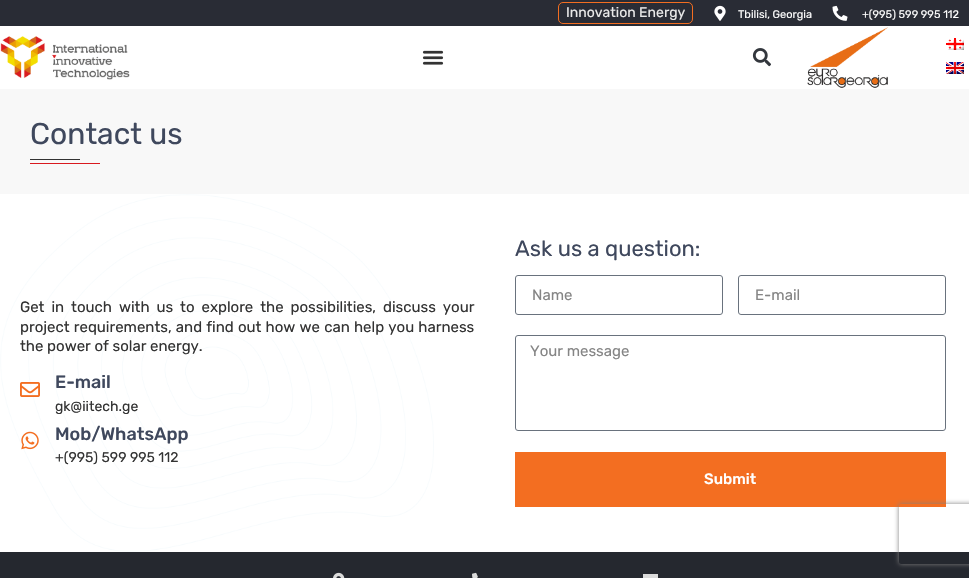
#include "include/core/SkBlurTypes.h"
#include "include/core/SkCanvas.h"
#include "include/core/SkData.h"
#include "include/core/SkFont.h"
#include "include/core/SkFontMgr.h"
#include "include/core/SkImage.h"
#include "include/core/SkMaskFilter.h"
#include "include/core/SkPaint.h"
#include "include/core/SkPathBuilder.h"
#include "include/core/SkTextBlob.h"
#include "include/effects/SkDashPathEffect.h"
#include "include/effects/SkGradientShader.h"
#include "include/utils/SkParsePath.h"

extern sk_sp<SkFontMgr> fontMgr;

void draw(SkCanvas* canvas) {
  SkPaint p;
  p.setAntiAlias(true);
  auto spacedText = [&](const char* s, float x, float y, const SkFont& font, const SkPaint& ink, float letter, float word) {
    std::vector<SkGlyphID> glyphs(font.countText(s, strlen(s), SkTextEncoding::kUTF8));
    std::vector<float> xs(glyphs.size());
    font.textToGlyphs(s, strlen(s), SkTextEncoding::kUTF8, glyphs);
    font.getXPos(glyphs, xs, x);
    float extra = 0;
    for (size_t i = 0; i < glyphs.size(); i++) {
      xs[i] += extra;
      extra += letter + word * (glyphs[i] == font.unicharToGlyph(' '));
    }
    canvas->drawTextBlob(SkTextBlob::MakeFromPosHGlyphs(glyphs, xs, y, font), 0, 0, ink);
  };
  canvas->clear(SK_ColorWHITE);
  p.setColor(SkColorSetRGB(41, 44, 53));
  canvas->drawRect(SkRect::MakeLTRB(0, 0, 969, 26), p);
  p.setStyle(SkPaint::kStroke_Style);
  p.setStrokeWidth(1);
  p.setColor(SkColorSetRGB(243, 110, 33));
  canvas->drawRoundRect(SkRect::MakeLTRB(558.5f, 2.5f, 692.5f, 23.5f), 4.5f, 4.5f, p);
  canvas->drawImageRect(SkImages::DeferredFromEncodedData(SkData::MakeFromFileName("images/1.png")), SkRect::MakeLTRB(714, 5, 726, 21), SkSamplingOptions());
  canvas->drawImageRect(SkImages::DeferredFromEncodedData(SkData::MakeFromFileName("images/2.png")), SkRect::MakeLTRB(832, 5, 848, 21), SkSamplingOptions());
  canvas->drawImageRect(SkImages::DeferredFromEncodedData(SkData::MakeFromFileName("images/3.png")), SkRect::MakeLTRB(0, 36, 130, 80), SkSamplingOptions());
  canvas->drawImageRect(SkImages::DeferredFromEncodedData(SkData::MakeFromFileName("images/4.png")), SkRect::MakeLTRB(422, 50, 444, 65), SkSamplingOptions());
  canvas->drawImageRect(SkImages::DeferredFromEncodedData(SkData::MakeFromFileName("images/5.png")), SkRect::MakeLTRB(752, 48, 771, 67), SkSamplingOptions());
  canvas->drawImageRect(SkImages::DeferredFromEncodedData(SkData::MakeFromFileName("images/6.png")), SkRect::MakeLTRB(807, 27, 888, 88), SkSamplingOptions());
  canvas->drawImageRect(SkImages::DeferredFromEncodedData(SkData::MakeFromFileName("images/7.png")), SkRect::MakeLTRB(946, 38, 964, 50), SkSamplingOptions());
  canvas->drawImageRect(SkImages::DeferredFromEncodedData(SkData::MakeFromFileName("images/8.png")), SkRect::MakeLTRB(946, 62, 964, 74), SkSamplingOptions());
  p.setStyle(SkPaint::kFill_Style);
  p.setColor(SkColorSetRGB(248, 248, 248));
  canvas->drawRect(SkRect::MakeLTRB(0, 89, 969, 194), p);
  p.setColor(SkColorSetRGB(51, 51, 51));
  canvas->drawRect(SkRect::MakeLTRB(30, 159, 80, 160), p);
  p.setColor(SkColorSetRGB(217, 26, 31));
  canvas->drawRect(SkRect::MakeLTRB(30, 163, 100, 164), p);
  canvas->drawImageRect(SkImages::DeferredFromEncodedData(SkData::MakeFromFileName("images/9.png")), SkRect::MakeLTRB(0, 194, 434, 552), SkSamplingOptions());
  canvas->drawImageRect(SkImages::DeferredFromEncodedData(SkData::MakeFromFileName("images/10.png")), SkRect::MakeLTRB(20, 382, 40, 397), SkSamplingOptions());
  canvas->drawImageRect(SkImages::DeferredFromEncodedData(SkData::MakeFromFileName("images/11.png")), SkRect::MakeLTRB(21, 431, 39, 450), SkSamplingOptions());
  p.setStyle(SkPaint::kStroke_Style);
  p.setColor(SkColorSetRGB(105, 114, 125));
  canvas->drawRoundRect(SkRect::MakeLTRB(515.5f, 275.5f, 722.5f, 314.5f), 2.5f, 2.5f, p);
  canvas->drawRoundRect(SkRect::MakeLTRB(738.5f, 275.5f, 945.5f, 314.5f), 2.5f, 2.5f, p);
  canvas->drawRoundRect(SkRect::MakeLTRB(515.5f, 335.5f, 945.5f, 430.5f), 2.5f, 2.5f, p);
  p.setStyle(SkPaint::kFill_Style);
  p.setColor(SkColorSetRGB(243, 110, 33));
  canvas->drawRect(SkRect::MakeLTRB(515, 452, 946, 507), p);
  p.setColor(SkColorSetRGB(37, 40, 47));
  canvas->drawRect(SkRect::MakeLTRB(0, 552, 969, 578), p);
  canvas->save();
  canvas->clipPath(SkPathBuilder(SkPathFillType::kEvenOdd).moveTo(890, 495).lineTo(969, 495).lineTo(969, 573).lineTo(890, 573).close().moveTo(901, 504).lineTo(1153, 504).cubicTo(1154, 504, 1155, 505, 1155, 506).lineTo(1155, 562).cubicTo(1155, 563, 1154, 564, 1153, 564).lineTo(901, 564).cubicTo(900, 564, 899, 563, 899, 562).lineTo(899, 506).cubicTo(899, 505, 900, 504, 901, 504).close().detach(), true);
  p.setColor(SkColorSetRGB(128, 128, 128));
  p.setMaskFilter(SkMaskFilter::MakeBlur(kNormal_SkBlurStyle, 2.5f));
  canvas->drawRoundRect(SkRect::MakeLTRB(899, 504, 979, 564), 2, 2, p);
  p.setMaskFilter(nullptr);
  canvas->restore();
  canvas->drawImageRect(SkImages::DeferredFromEncodedData(SkData::MakeFromFileName("images/12.png")), SkRect::MakeLTRB(333, 572, 345, 578), SkSamplingOptions());
  canvas->drawImageRect(SkImages::DeferredFromEncodedData(SkData::MakeFromFileName("images/13.png")), SkRect::MakeLTRB(472, 572, 478, 578), SkSamplingOptions());
  p.setColor(SkColorSetRGB(219, 219, 219));
  canvas->drawRect(SkRect::MakeLTRB(643, 574, 658, 578), p);
  SkFont font1(fontMgr->matchFamilyStyle("Rubik", SkFontStyle::Normal()), 14);
  font1.setSubpixel(true);
  p.setColor(SkColorSetRGB(233, 233, 233));
  canvas->drawString("Innovation Energy", 566, 17, font1, p);
  SkFont font2(fontMgr->matchFamilyStyle("Rubik", SkFontStyle::Normal()), 11);
  font2.setSubpixel(true);
  p.setColor(SK_ColorWHITE);
  canvas->drawString("Tbilisi, Georgia", 738, 18, font2, p);
  canvas->drawString("+(995) 599 995 112", 862, 18, font2, p);
  SkFont font3(fontMgr->matchFamilyStyle("Rubik", SkFontStyle::Normal()), 30);
  font3.setSubpixel(true);
  p.setColor(SkColorSetRGB(63, 72, 93));
  canvas->drawString("Contact us", 30, 144, font3, p);
  SkFont font4(fontMgr->matchFamilyStyle("Rubik", SkFontStyle::Normal()), 15);
  font4.setSubpixel(true);
  p.setColor(SkColorSetRGB(51, 51, 51));
  spacedText("Get in touch with us to explore the possibilities, discuss your", 20, 312, font4, p, 0, 3.25f);
  spacedText("project requirements, and find out how we can help you harness", 20, 332, font4, p, 0, 0.5f);
  canvas->drawString("the power of solar energy.", 20, 351, font4, p);
  SkFont font5(fontMgr->matchFamilyStyle("Rubik", SkFontStyle(500, SkFontStyle::kNormal_Width, SkFontStyle::kUpright_Slant)), 18);
  font5.setSubpixel(true);
  p.setColor(SkColorSetRGB(63, 72, 93));
  canvas->drawString("E-mail", 55, 388, font5, p);
  p.setColor(SkColorSetRGB(51, 51, 51));
  canvas->drawString("gk@iitech.ge", 55, 411, font1, p);
  p.setColor(SkColorSetRGB(63, 72, 93));
  canvas->drawString("Mob/WhatsApp", 55, 440, font5, p);
  p.setColor(SkColorSetRGB(51, 51, 51));
  canvas->drawString("+(995) 599 995 112", 55, 462, font1, p);
  SkFont font6(fontMgr->matchFamilyStyle("Rubik", SkFontStyle::Normal()), 22);
  font6.setSubpixel(true);
  p.setColor(SkColorSetRGB(63, 72, 93));
  canvas->drawString("Ask us a question:", 515, 256, font6, p);
  p.setColor(SkColorSetRGB(133, 133, 133));
  canvas->drawString("Name", 532, 300, font4, p);
  canvas->drawString("E-mail", 755, 300, font4, p);
  canvas->drawString("Your message", 530, 356, font4, p);
  SkFont font7(fontMgr->matchFamilyStyle("Rubik", SkFontStyle(500, SkFontStyle::kNormal_Width, SkFontStyle::kUpright_Slant)), 15);
  font7.setSubpixel(true);
  p.setColor(SK_ColorWHITE);
  canvas->drawString("Submit", 704, 484, font7, p);
}
